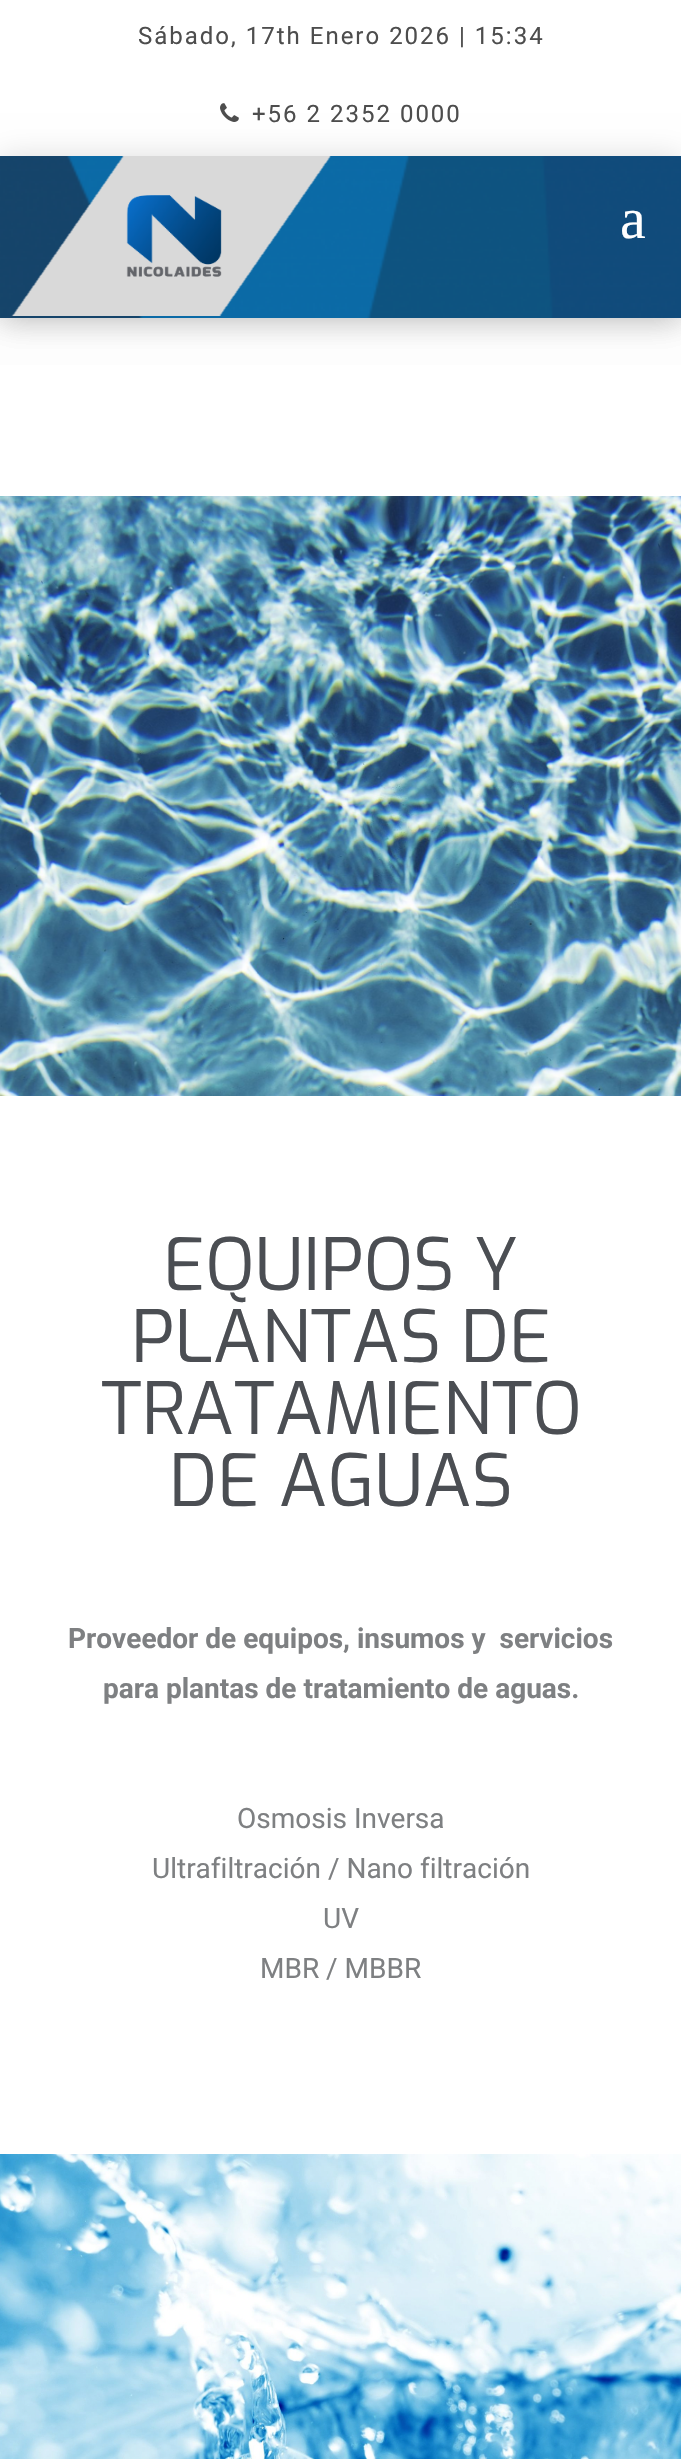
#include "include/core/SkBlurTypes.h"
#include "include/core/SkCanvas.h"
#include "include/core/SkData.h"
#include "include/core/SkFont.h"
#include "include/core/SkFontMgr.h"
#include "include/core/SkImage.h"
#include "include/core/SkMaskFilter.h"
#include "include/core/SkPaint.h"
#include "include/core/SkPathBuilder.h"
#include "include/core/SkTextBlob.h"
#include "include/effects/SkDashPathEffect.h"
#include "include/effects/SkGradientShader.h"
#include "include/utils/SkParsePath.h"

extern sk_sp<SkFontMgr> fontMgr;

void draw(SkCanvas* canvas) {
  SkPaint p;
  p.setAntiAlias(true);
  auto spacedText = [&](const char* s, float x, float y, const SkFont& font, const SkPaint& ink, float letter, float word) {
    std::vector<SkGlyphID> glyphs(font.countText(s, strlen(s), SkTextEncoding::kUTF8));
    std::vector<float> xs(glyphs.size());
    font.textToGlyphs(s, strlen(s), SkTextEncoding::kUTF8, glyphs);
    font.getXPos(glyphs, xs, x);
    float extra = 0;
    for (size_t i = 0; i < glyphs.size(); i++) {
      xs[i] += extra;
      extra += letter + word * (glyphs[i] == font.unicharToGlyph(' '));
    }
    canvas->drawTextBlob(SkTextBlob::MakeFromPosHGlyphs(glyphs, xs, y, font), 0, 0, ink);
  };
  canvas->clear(SK_ColorWHITE);
  p.setColor(SkColorSetARGB(38, 0, 0, 0));
  p.setMaskFilter(SkMaskFilter::MakeBlur(kNormal_SkBlurStyle, 15));
  canvas->drawRect(SkRect::MakeLTRB(0, 2, 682, 320), p);
  p.setMaskFilter(nullptr);
  canvas->drawImageRect(SkImages::DeferredFromEncodedData(SkData::MakeFromFileName("images/1.png")), SkRect::MakeLTRB(0, 156, 681, 318), SkSamplingOptions());
  p.setColor(SK_ColorWHITE);
  canvas->drawRect(SkRect::MakeLTRB(0, 0, 681, 156), p);
  canvas->drawImageRect(SkImages::DeferredFromEncodedData(SkData::MakeFromFileName("images/2.png")), SkRect::MakeLTRB(220, 103, 239, 122), SkSamplingOptions());
  canvas->save();
  canvas->clipPath(SkPathBuilder(SkPathFillType::kEvenOdd).moveTo(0, 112).lineTo(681, 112).lineTo(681, 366).lineTo(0, 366).close().moveTo(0, 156).lineTo(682, 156).lineTo(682, 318).lineTo(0, 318).close().detach(), true);
  p.setColor(SkColorSetARGB(38, 0, 0, 0));
  p.setMaskFilter(SkMaskFilter::MakeBlur(kNormal_SkBlurStyle, 15));
  canvas->drawRect(SkRect::MakeLTRB(0, 158, 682, 320), p);
  p.setMaskFilter(nullptr);
  canvas->restore();
  canvas->drawImageRect(SkImages::DeferredFromEncodedData(SkData::MakeFromFileName("images/3.png")), SkRect::MakeLTRB(11, 156, 331, 316), SkSamplingOptions());
  canvas->drawImageRect(SkImages::DeferredFromEncodedData(SkData::MakeFromFileName("images/4.png")), SkRect::MakeLTRB(0, 496, 681, 1096), SkSamplingOptions());
  canvas->drawImageRect(SkImages::DeferredFromEncodedData(SkData::MakeFromFileName("images/5.png")), SkRect::MakeLTRB(0, 2154, 681, 2459), SkSamplingOptions());
  SkFont font1(fontMgr->matchFamilyStyle("Roboto", SkFontStyle::Normal()), 24);
  font1.setSubpixel(true);
  p.setColor(SkColorSetRGB(77, 77, 77));
  spacedText("Sábado, 17th Enero 2026 | 15:34", 138, 44, font1, p, 2, 0);
  spacedText("+56 2 2352 0000", 252, 122, font1, p, 2, 0);
  SkFont font2(fontMgr->matchFamilyStyle("Liberation Serif", SkFontStyle::Normal()), 58);
  font2.setSubpixel(true);
  p.setColor(SK_ColorWHITE);
  canvas->drawString("a", 620, 238, font2, p);
  SkFont font3(fontMgr->matchFamilyStyle("Exo", SkFontStyle::Normal()), 72);
  font3.setSubpixel(true);
  p.setColor(SkColorSetRGB(75, 78, 83));
  canvas->drawString("EQUIPOS Y", 163, 1290, font3, p);
  canvas->drawString("PLANTAS DE", 131, 1362, font3, p);
  canvas->drawString("TRATAMIENTO", 101, 1434, font3, p);
  canvas->drawString("DE AGUAS", 169, 1506, font3, p);
  SkFont font4(fontMgr->matchFamilyStyle("Roboto", SkFontStyle::Bold()), 28);
  font4.setSubpixel(true);
  p.setColor(SkColorSetRGB(126, 128, 130));
  canvas->drawString("Proveedor de equipos, insumos y  servicios", 68, 1648, font4, p);
  canvas->drawString("para plantas de tratamiento de aguas.", 103, 1698, font4, p);
  SkFont font5(fontMgr->matchFamilyStyle("Roboto", SkFontStyle::Normal()), 28);
  font5.setSubpixel(true);
  canvas->drawString("Osmosis Inversa", 237, 1828, font5, p);
  canvas->drawString("Ultrafiltración / Nano filtración", 152, 1878, font5, p);
  canvas->drawString("UV", 323, 1928, font5, p);
  canvas->drawString("MBR / MBBR", 260, 1978, font5, p);
}
